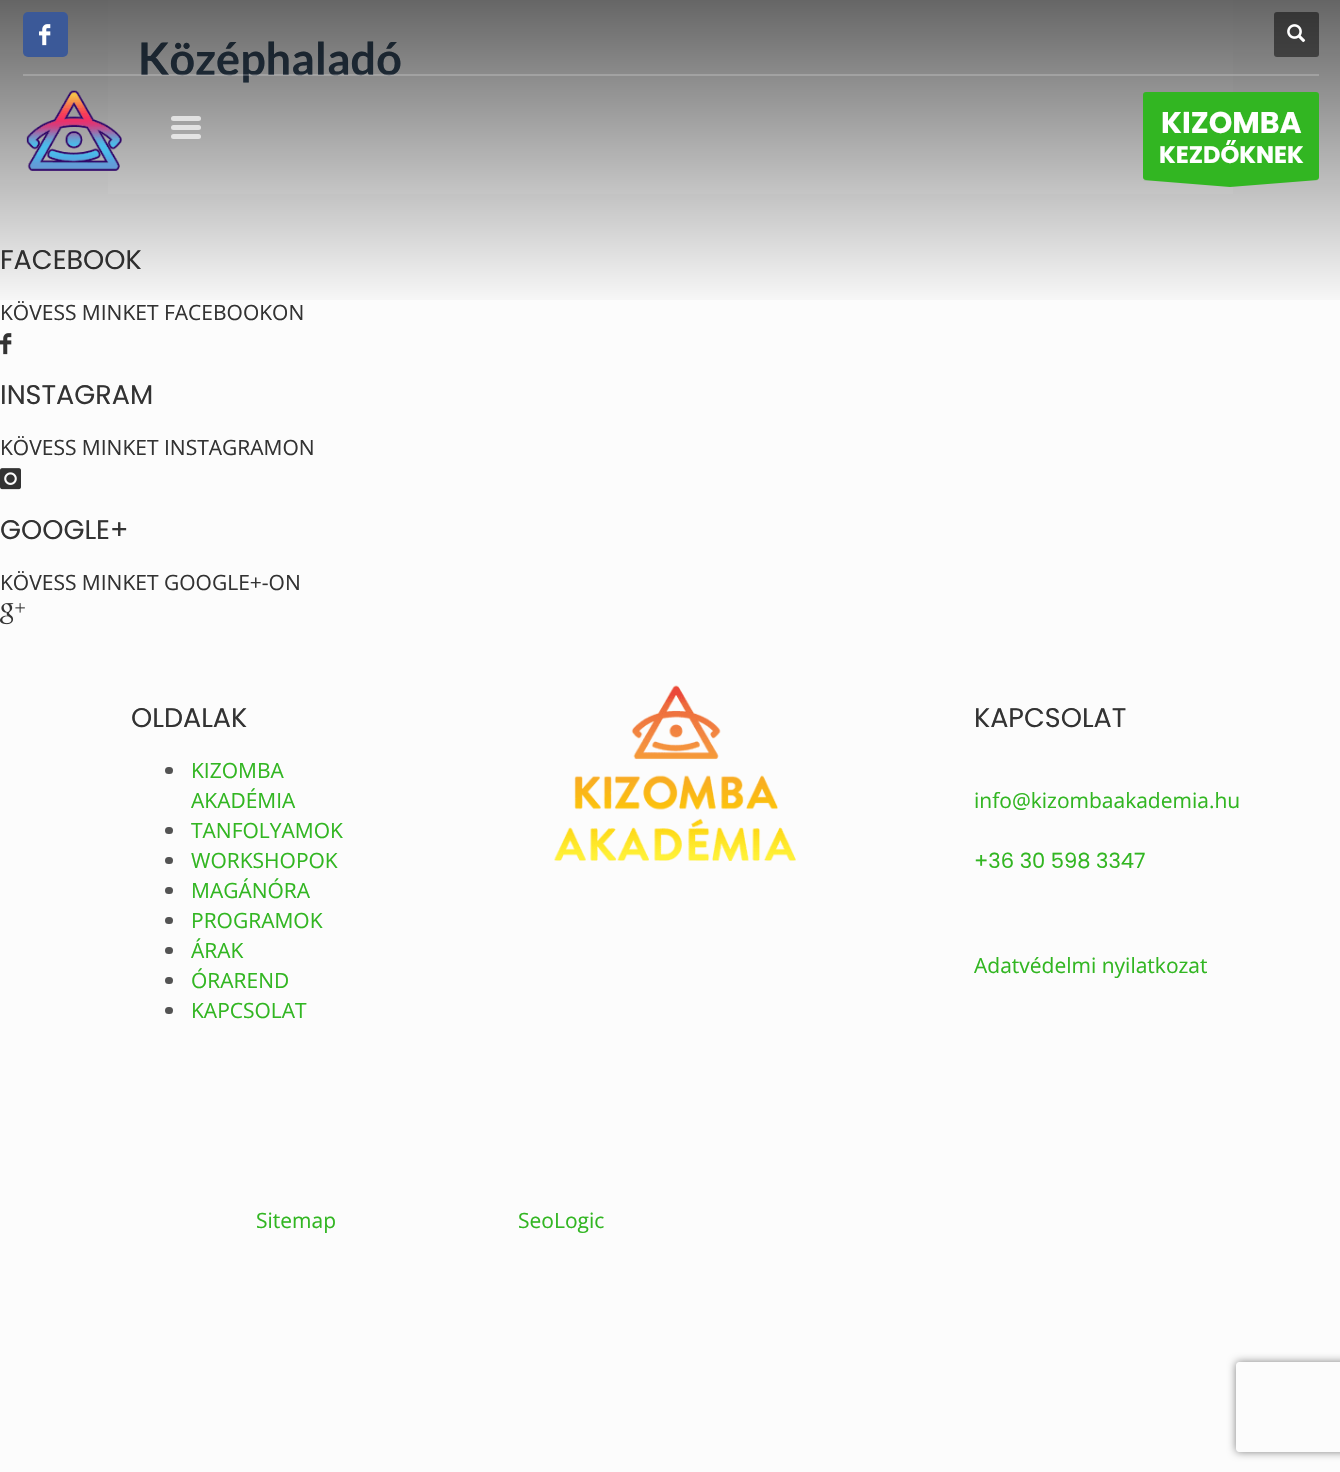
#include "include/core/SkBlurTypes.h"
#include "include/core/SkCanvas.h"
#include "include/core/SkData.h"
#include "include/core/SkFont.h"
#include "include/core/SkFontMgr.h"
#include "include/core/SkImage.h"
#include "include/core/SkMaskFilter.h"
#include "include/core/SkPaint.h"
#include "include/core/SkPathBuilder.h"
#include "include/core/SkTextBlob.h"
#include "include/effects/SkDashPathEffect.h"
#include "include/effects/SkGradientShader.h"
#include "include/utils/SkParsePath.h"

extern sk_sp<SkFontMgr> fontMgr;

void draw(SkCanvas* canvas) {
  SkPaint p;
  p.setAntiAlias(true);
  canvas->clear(SkColorSetRGB(252, 252, 252));
  p.setColor(SK_ColorWHITE);
  canvas->drawRect(SkRect::MakeLTRB(108, 0, 1233, 194), p);
  canvas->drawImageRect(SkImages::DeferredFromEncodedData(SkData::MakeFromFileName("images/4.png")), SkRect::MakeLTRB(0, 333, 12, 355), SkSamplingOptions());
  canvas->drawImageRect(SkImages::DeferredFromEncodedData(SkData::MakeFromFileName("images/5.png")), SkRect::MakeLTRB(0, 468, 21, 490), SkSamplingOptions());
  canvas->drawImageRect(SkImages::DeferredFromEncodedData(SkData::MakeFromFileName("images/6.png")), SkRect::MakeLTRB(0, 603, 25, 625), SkSamplingOptions());
  p.setColor(SkColorSetRGB(83, 83, 83));
  canvas->drawRoundRect(SkRect::MakeLTRB(165, 767, 173, 774), 3.5f, 3.5f, p);
  canvas->drawRoundRect(SkRect::MakeLTRB(165, 827, 173, 834), 3.5f, 3.5f, p);
  canvas->drawRoundRect(SkRect::MakeLTRB(165, 857, 173, 864), 3.5f, 3.5f, p);
  canvas->drawRoundRect(SkRect::MakeLTRB(165, 887, 173, 894), 3.5f, 3.5f, p);
  canvas->drawRoundRect(SkRect::MakeLTRB(165, 917, 173, 924), 3.5f, 3.5f, p);
  canvas->drawRoundRect(SkRect::MakeLTRB(165, 947, 173, 954), 3.5f, 3.5f, p);
  canvas->drawRoundRect(SkRect::MakeLTRB(165, 977, 173, 984), 3.5f, 3.5f, p);
  canvas->drawRoundRect(SkRect::MakeLTRB(165, 1007, 173, 1014), 3.5f, 3.5f, p);
  canvas->drawImageRect(SkImages::DeferredFromEncodedData(SkData::MakeFromFileName("images/7.png")), SkRect::MakeLTRB(554, 685, 796, 861), SkSamplingOptions());
  canvas->save();
  canvas->clipPath(SkPathBuilder(SkPathFillType::kEvenOdd).moveTo(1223, 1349).lineTo(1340, 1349).lineTo(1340, 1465).lineTo(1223, 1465).close().moveTo(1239, 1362).lineTo(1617, 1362).cubicTo(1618.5f, 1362, 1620, 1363.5f, 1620, 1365).lineTo(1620, 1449).cubicTo(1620, 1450.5f, 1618.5f, 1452, 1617, 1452).lineTo(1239, 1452).cubicTo(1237.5f, 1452, 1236, 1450.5f, 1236, 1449).lineTo(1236, 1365).cubicTo(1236, 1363.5f, 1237.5f, 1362, 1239, 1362).close().detach(), true);
  p.setColor(SkColorSetRGB(128, 128, 128));
  p.setMaskFilter(SkMaskFilter::MakeBlur(kNormal_SkBlurStyle, 4));
  canvas->drawRoundRect(SkRect::MakeLTRB(1236, 1362, 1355, 1452), 3, 3, p);
  p.setMaskFilter(nullptr);
  canvas->restore();
  SkFont font1(fontMgr->matchFamilyStyle("Lato", SkFontStyle::Bold()), 45);
  font1.setSubpixel(true);
  p.setColor(SkColorSetRGB(52, 73, 94));
  canvas->drawString("Középhaladó", 138, 75, font1, p);
  SkFont font2(fontMgr->matchFamilyStyle("Poppins", SkFontStyle::Normal()), 27);
  font2.setSubpixel(true);
  p.setColor(SkColorSetRGB(51, 51, 51));
  canvas->drawString("FACEBOOK", 0, 269, font2, p);
  {
    const SkColor colors[] = {SkColorSetARGB(153, 0, 0, 0), SkColorSetARGB(0, 0, 0, 0)};
    const float stops[] = {0, 1};
    const SkPoint ends[] = {{671, 0}, {671, 311}};
    p.setShader(SkGradientShader::MakeLinear(ends, colors, stops, 2, SkTileMode::kClamp));
    p.setAlpha(255);
  }
  canvas->drawRect(SkRect::MakeLTRB(0, 0, 1340, 300), p);
  p.setShader(nullptr);
  p.setColor(SkColorSetARGB(128, 0, 0, 0));
  canvas->drawRoundRect(SkRect::MakeLTRB(1274, 12, 1319, 57), 3, 3, p);
  canvas->drawImageRect(SkImages::DeferredFromEncodedData(SkData::MakeFromFileName("images/2.png")), SkRect::MakeLTRB(1287, 24, 1306, 43), SkSamplingOptions());
  p.setColor(SkColorSetRGB(50, 182, 34));
  canvas->drawPath(SkPathBuilder(SkPathFillType::kEvenOdd).moveTo(1318, 180).lineTo(1230, 187).lineTo(1143, 180).close().detach(), p);
  canvas->drawRoundRect(SkRect::MakeLTRB(1143, 92, 1319, 180), 3, 3, p);
  SkFont font3(fontMgr->matchFamilyStyle("Poppins", SkFontStyle::Bold()), 24);
  font3.setSubpixel(true);
  p.setColor(SK_ColorWHITE);
  canvas->drawString("KEZDŐKNEK", 1159, 163, font3, p);
  SkFont font4(fontMgr->matchFamilyStyle("Poppins", SkFontStyle::Bold()), 30);
  font4.setSubpixel(true);
  canvas->drawString("KIZOMBA", 1161, 133, font4, p);
  p.setColor(SkColorSetRGB(59, 89, 152));
  canvas->drawRoundRect(SkRect::MakeLTRB(23, 12, 68, 57), 5, 5, p);
  canvas->drawImageRect(SkImages::DeferredFromEncodedData(SkData::MakeFromFileName("images/1.png")), SkRect::MakeLTRB(39, 24, 51, 46), SkSamplingOptions());
  p.setColor(SkColorSetRGB(228, 228, 228));
  canvas->drawRoundRect(SkRect::MakeLTRB(171, 134, 201, 139), 2.5f, 2.5f, p);
  p.setColor(SkColorSetRGB(226, 226, 226));
  canvas->drawRoundRect(SkRect::MakeLTRB(171, 125, 201, 130), 2.5f, 2.5f, p);
  p.setColor(SkColorSetRGB(225, 225, 225));
  canvas->drawRoundRect(SkRect::MakeLTRB(171, 116, 201, 121), 2.5f, 2.5f, p);
  canvas->drawImageRect(SkImages::DeferredFromEncodedData(SkData::MakeFromFileName("images/3.png")), SkRect::MakeLTRB(26, 90, 122, 171), SkSamplingOptions());
  p.setColor(SkColorSetARGB(51, 255, 255, 255));
  canvas->drawRect(SkRect::MakeLTRB(23, 74, 1319, 76), p);
  SkFont font5(fontMgr->matchFamilyStyle("Open Sans", SkFontStyle::Normal()), 21);
  font5.setSubpixel(true);
  p.setColor(SkColorSetRGB(51, 51, 51));
  canvas->drawString("KÖVESS MINKET FACEBOOKON", 0, 320, font5, p);
  canvas->drawString("INSTAGRAM", 0, 404, font2, p);
  canvas->drawString("KÖVESS MINKET INSTAGRAMON", 0, 455, font5, p);
  canvas->drawString("GOOGLE+", 0, 539, font2, p);
  canvas->drawString("KÖVESS MINKET GOOGLE+-ON", 0, 590, font5, p);
  canvas->drawString("OLDALAK", 131, 727, font2, p);
  p.setColor(SkColorSetRGB(50, 182, 34));
  canvas->drawString("KIZOMBA", 191, 778, font5, p);
  canvas->drawString("AKADÉMIA", 191, 808, font5, p);
  canvas->drawString("TANFOLYAMOK", 191, 838, font5, p);
  canvas->drawString("WORKSHOPOK", 191, 868, font5, p);
  canvas->drawString("MAGÁNÓRA", 191, 898, font5, p);
  canvas->drawString("PROGRAMOK", 191, 928, font5, p);
  canvas->drawString("ÁRAK", 191, 958, font5, p);
  canvas->drawString("ÓRAREND", 191, 988, font5, p);
  canvas->drawString("KAPCSOLAT", 191, 1018, font5, p);
  p.setColor(SkColorSetRGB(51, 51, 51));
  canvas->drawString("KAPCSOLAT", 974, 727, font2, p);
  p.setColor(SkColorSetRGB(50, 182, 34));
  canvas->drawString("info@kizombaakademia.hu", 974, 808, font5, p);
  SkFont font6(fontMgr->matchFamilyStyle("Poppins", SkFontStyle::Normal()), 21);
  font6.setSubpixel(true);
  canvas->drawString("+36 30 598 3347", 974, 868, font6, p);
  canvas->drawString("Adatvédelmi nyilatkozat", 974, 973, font5, p);
  canvas->drawString("Sitemap", 256, 1228, font5, p);
  canvas->drawString("SeoLogic", 518, 1228, font5, p);
}
